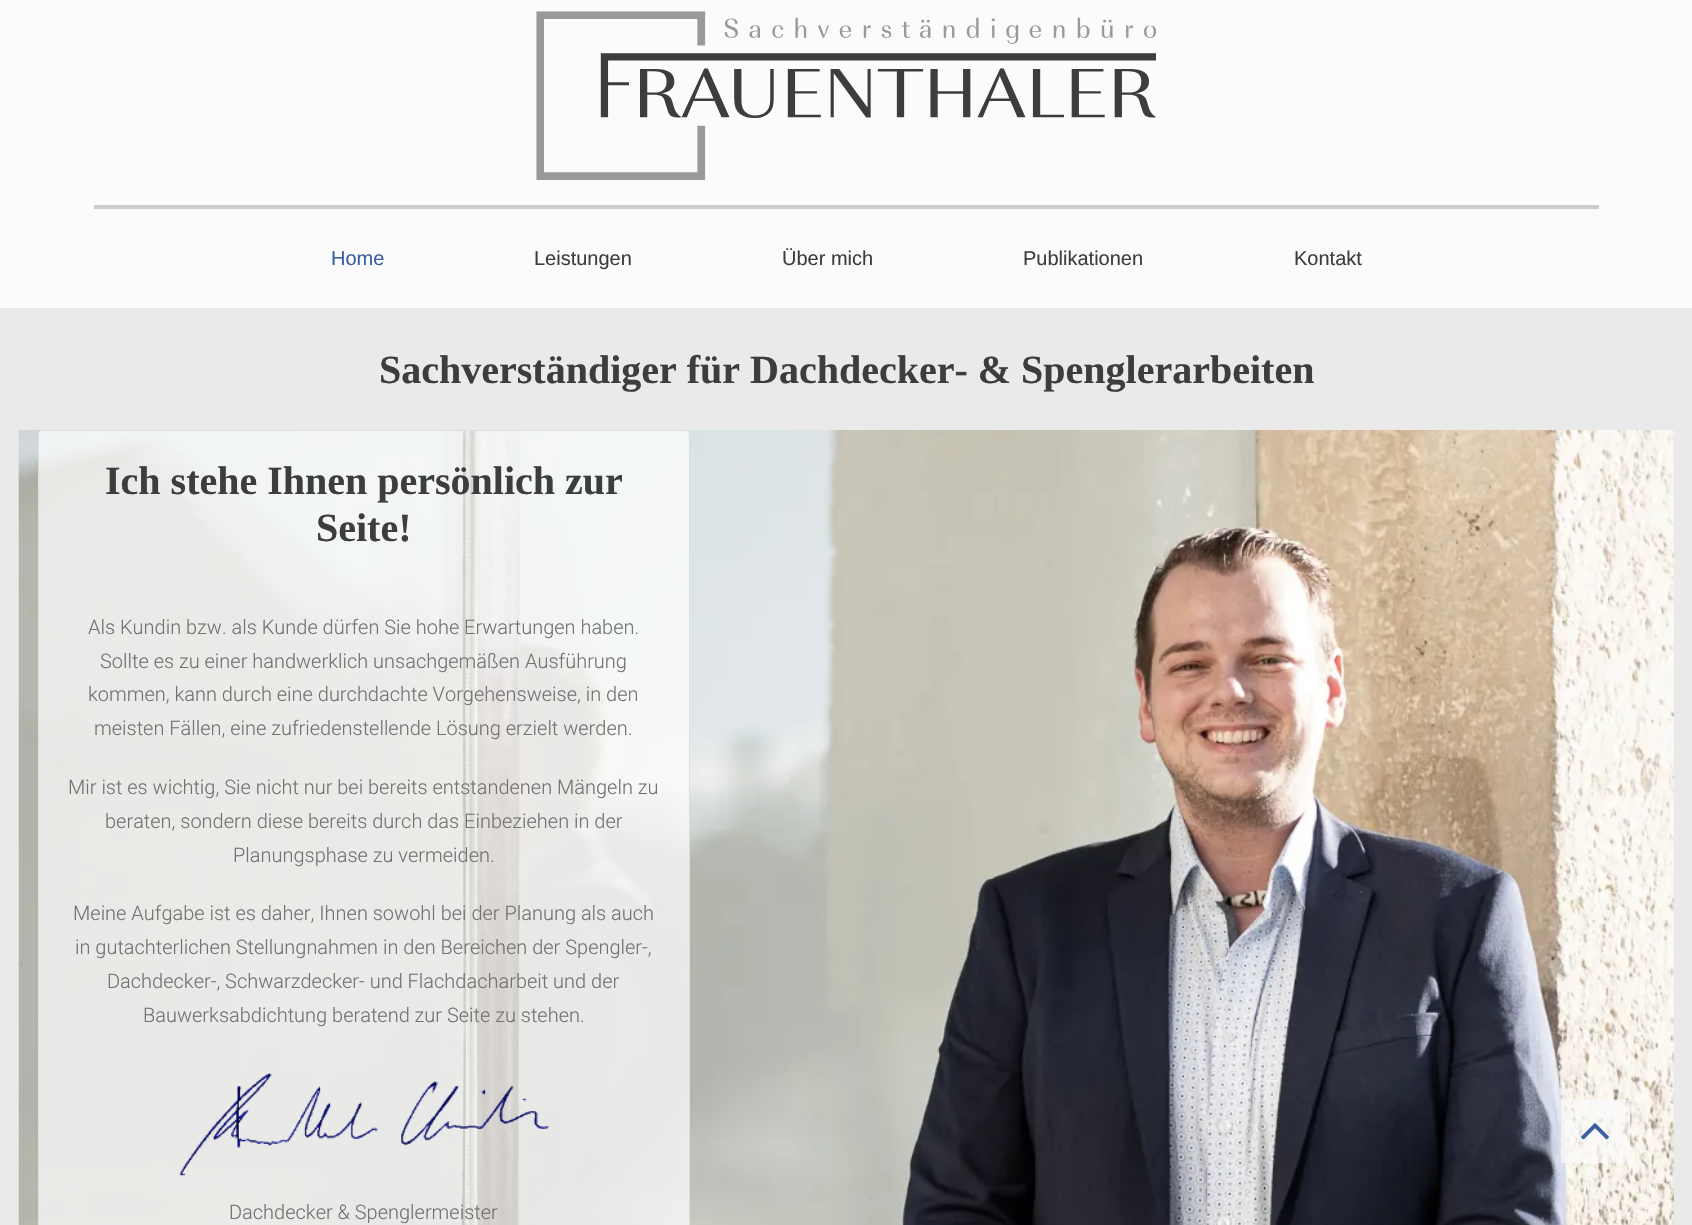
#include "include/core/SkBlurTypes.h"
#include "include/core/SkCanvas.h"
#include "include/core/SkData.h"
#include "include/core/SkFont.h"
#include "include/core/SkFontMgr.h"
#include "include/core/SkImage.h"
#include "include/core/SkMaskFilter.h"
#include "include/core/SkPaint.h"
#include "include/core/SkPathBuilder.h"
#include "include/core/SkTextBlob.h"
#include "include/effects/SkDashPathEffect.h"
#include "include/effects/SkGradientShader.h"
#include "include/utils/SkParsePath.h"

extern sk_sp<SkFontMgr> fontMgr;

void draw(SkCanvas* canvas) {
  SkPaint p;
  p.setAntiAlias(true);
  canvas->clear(SkColorSetRGB(234, 234, 234));
  p.setColor(SkColorSetRGB(251, 251, 251));
  canvas->drawRect(SkRect::MakeLTRB(0, 0, 1692, 308), p);
  canvas->drawImageRect(SkImages::DeferredFromEncodedData(SkData::MakeFromFileName("images/1.png")), SkRect::MakeLTRB(536, 11, 1156, 180), SkSamplingOptions());
  p.setColor(SkColorSetRGB(204, 204, 204));
  canvas->drawRect(SkRect::MakeLTRB(94, 205, 1599, 209), p);
  canvas->drawImageRect(SkImages::DeferredFromEncodedData(SkData::MakeFromFileName("images/2.png")), SkRect::MakeLTRB(18, 430, 1674, 1225), SkSamplingOptions());
  p.setColor(SkColorSetARGB(181, 255, 255, 255));
  canvas->drawRoundRect(SkRect::MakeLTRB(38.5f, 430.5f, 689.5f, 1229.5f), 3.5f, 3.5f, p);
  p.setStyle(SkPaint::kStroke_Style);
  p.setStrokeWidth(1);
  p.setColor(SkColorSetRGB(222, 222, 222));
  canvas->drawRoundRect(SkRect::MakeLTRB(38.5f, 430.5f, 689.5f, 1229.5f), 3.5f, 3.5f, p);
  canvas->drawImageRect(SkImages::DeferredFromEncodedData(SkData::MakeFromFileName("images/3.png")), SkRect::MakeLTRB(179, 1073, 549, 1177), SkSamplingOptions());
  p.setStyle(SkPaint::kFill_Style);
  p.setColor(SkColorSetARGB(171, 251, 251, 251));
  canvas->drawRect(SkRect::MakeLTRB(1561, 1100, 1630, 1163), p);
  canvas->drawImageRect(SkImages::DeferredFromEncodedData(SkData::MakeFromFileName("images/4.png")), SkRect::MakeLTRB(1581, 1123, 1609, 1140), SkSamplingOptions());
  SkFont font1(fontMgr->matchFamilyStyle("Liberation Sans", SkFontStyle::Normal()), 20);
  font1.setSubpixel(true);
  p.setColor(SkColorSetRGB(58, 95, 160));
  canvas->drawString("Home", 331, 265, font1, p);
  p.setColor(SkColorSetRGB(61, 61, 61));
  canvas->drawString("Leistungen", 534, 265, font1, p);
  canvas->drawString("Über mich", 782, 265, font1, p);
  canvas->drawString("Publikationen", 1023, 265, font1, p);
  canvas->drawString("Kontakt", 1294, 265, font1, p);
  SkFont font2(fontMgr->matchFamilyStyle("Liberation Serif", SkFontStyle::Bold()), 40);
  font2.setSubpixel(true);
  canvas->drawString("Sachverständiger für Dachdecker- & Spenglerarbeiten", 379, 383, font2, p);
  canvas->drawString("Ich stehe Ihnen persönlich zur", 105, 494, font2, p);
  canvas->drawString("Seite!", 316, 541, font2, p);
  SkFont font3(fontMgr->matchFamilyStyle("Roboto", SkFontStyle(300, SkFontStyle::kNormal_Width, SkFontStyle::kUpright_Slant)), 20);
  font3.setSubpixel(true);
  p.setColor(SkColorSetRGB(114, 114, 114));
  canvas->drawString("Als Kundin bzw. als Kunde dürfen Sie hohe Erwartungen haben.", 88, 634, font3, p);
  canvas->drawString("Sollte es zu einer handwerklich unsachgemäßen Ausführung", 100, 668, font3, p);
  canvas->drawString("kommen, kann durch eine durchdachte Vorgehensweise, in den", 88, 701, font3, p);
  canvas->drawString("meisten Fällen, eine zufriedenstellende Lösung erzielt werden.", 94, 735, font3, p);
  canvas->drawString("Mir ist es wichtig, Sie nicht nur bei bereits entstandenen Mängeln zu", 68, 794, font3, p);
  canvas->drawString("beraten, sondern diese bereits durch das Einbeziehen in der", 105, 828, font3, p);
  canvas->drawString("Planungsphase zu vermeiden.", 233, 862, font3, p);
  canvas->drawString("Meine Aufgabe ist es daher, Ihnen sowohl bei der Planung als auch", 73, 920, font3, p);
  canvas->drawString("in gutachterlichen Stellungnahmen in den Bereichen der Spengler-,", 75, 954, font3, p);
  canvas->drawString("Dachdecker-, Schwarzdecker- und Flachdacharbeit und der", 107, 988, font3, p);
  canvas->drawString("Bauwerksabdichtung beratend zur Seite zu stehen.", 143, 1022, font3, p);
  canvas->drawString("Dachdecker & Spenglermeister", 229, 1219, font3, p);
}
